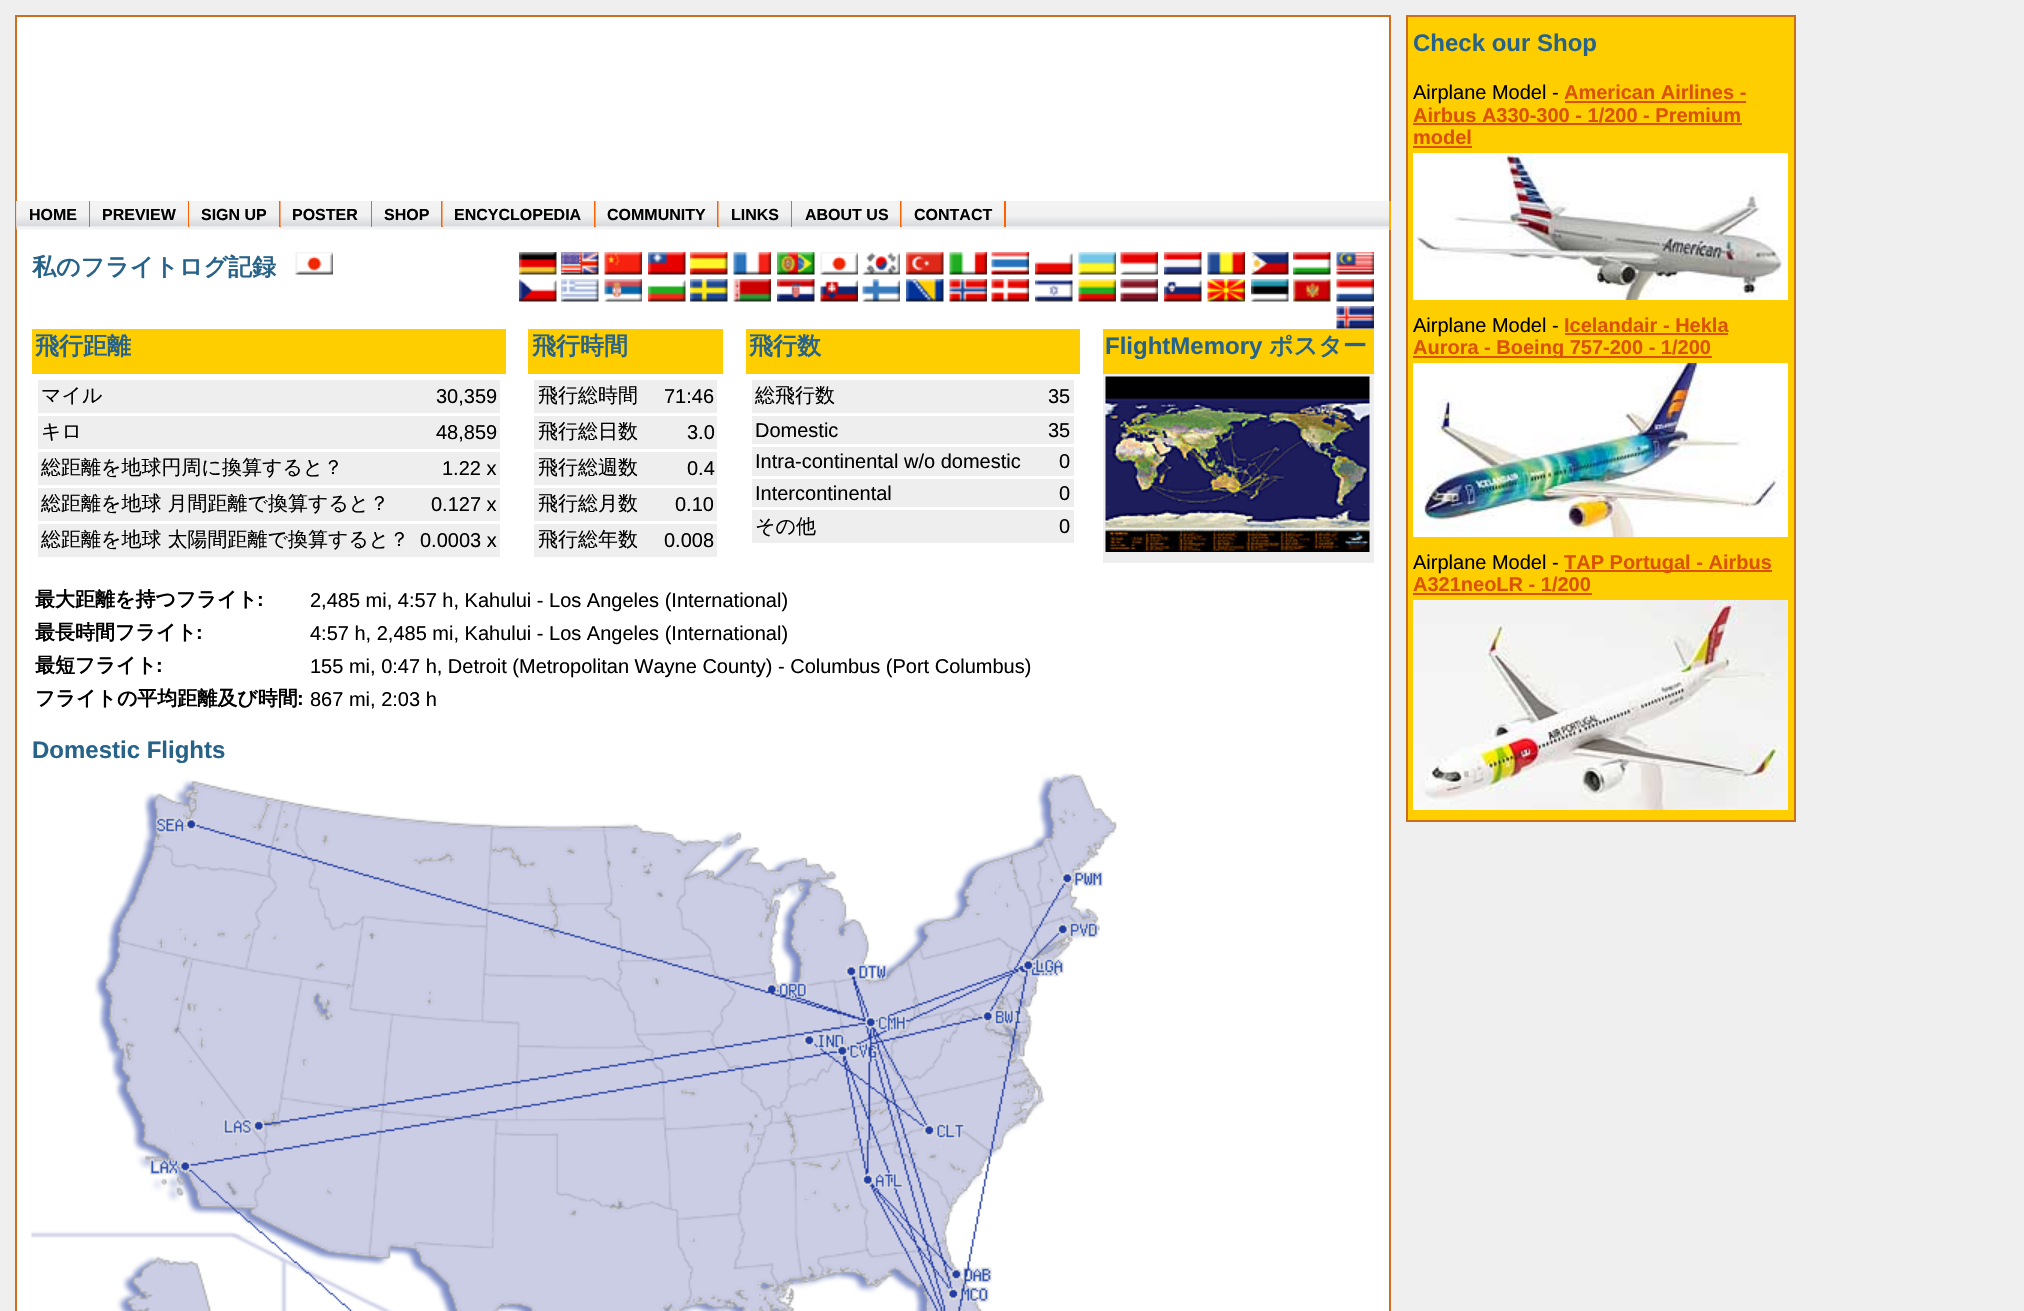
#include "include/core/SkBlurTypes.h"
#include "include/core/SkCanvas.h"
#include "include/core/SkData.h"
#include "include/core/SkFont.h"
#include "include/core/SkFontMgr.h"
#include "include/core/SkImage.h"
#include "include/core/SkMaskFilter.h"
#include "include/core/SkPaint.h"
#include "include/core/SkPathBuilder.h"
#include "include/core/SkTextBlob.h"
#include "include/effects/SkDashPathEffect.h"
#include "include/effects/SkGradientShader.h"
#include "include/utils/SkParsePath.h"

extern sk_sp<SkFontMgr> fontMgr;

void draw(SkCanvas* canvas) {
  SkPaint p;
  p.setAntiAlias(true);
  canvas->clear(SkColorSetRGB(239, 239, 239));
  p.setColor(SK_ColorWHITE);
  canvas->drawRect(SkRect::MakeLTRB(17, 17, 1389, 1311), p);
  p.setColor(SkColorSetRGB(205, 110, 30));
  canvas->drawRect(SkRect::MakeLTRB(15, 15, 1391, 17), p);
  canvas->drawRect(SkRect::MakeLTRB(1389, 15, 1391, 1311), p);
  canvas->drawRect(SkRect::MakeLTRB(15, 15, 17, 1311), p);
  canvas->drawImageRect(SkImages::DeferredFromEncodedData(SkData::MakeFromFileName("images/1.png")), SkRect::MakeLTRB(16, 201, 1389, 230), SkSamplingOptions());
  p.setColor(SkColorSetRGB(255, 174, 0));
  canvas->drawRect(SkRect::MakeLTRB(1389, 201, 1391, 230), p);
  p.setColor(SK_ColorWHITE);
  canvas->drawRect(SkRect::MakeLTRB(1006, 226, 1389, 227), p);
  canvas->drawImageRect(SkImages::DeferredFromEncodedData(SkData::MakeFromFileName("images/2.png")), SkRect::MakeLTRB(16, 201, 1389, 227), SkSamplingOptions());
  canvas->drawRect(SkRect::MakeLTRB(17, 226, 89, 227), p);
  canvas->drawImageRect(SkImages::DeferredFromEncodedData(SkData::MakeFromFileName("images/3.png")), SkRect::MakeLTRB(16, 201, 89, 227), SkSamplingOptions());
  p.setColor(SkColorSetRGB(255, 96, 0));
  canvas->drawRect(SkRect::MakeLTRB(89, 201, 90, 227), p);
  p.setColor(SK_ColorWHITE);
  canvas->drawRect(SkRect::MakeLTRB(90, 226, 188, 227), p);
  canvas->drawImageRect(SkImages::DeferredFromEncodedData(SkData::MakeFromFileName("images/4.png")), SkRect::MakeLTRB(90, 201, 188, 227), SkSamplingOptions());
  p.setColor(SkColorSetRGB(255, 96, 0));
  canvas->drawRect(SkRect::MakeLTRB(188, 201, 189, 227), p);
  p.setColor(SK_ColorWHITE);
  canvas->drawRect(SkRect::MakeLTRB(189, 226, 279, 227), p);
  canvas->drawImageRect(SkImages::DeferredFromEncodedData(SkData::MakeFromFileName("images/5.png")), SkRect::MakeLTRB(189, 201, 279, 227), SkSamplingOptions());
  p.setColor(SkColorSetRGB(255, 96, 0));
  canvas->drawRect(SkRect::MakeLTRB(279, 201, 281, 227), p);
  p.setColor(SK_ColorWHITE);
  canvas->drawRect(SkRect::MakeLTRB(281, 226, 371, 227), p);
  canvas->drawImageRect(SkImages::DeferredFromEncodedData(SkData::MakeFromFileName("images/6.png")), SkRect::MakeLTRB(280, 201, 371, 227), SkSamplingOptions());
  p.setColor(SkColorSetRGB(255, 96, 0));
  canvas->drawRect(SkRect::MakeLTRB(371, 201, 372, 227), p);
  p.setColor(SK_ColorWHITE);
  canvas->drawRect(SkRect::MakeLTRB(372, 226, 441, 227), p);
  canvas->drawImageRect(SkImages::DeferredFromEncodedData(SkData::MakeFromFileName("images/7.png")), SkRect::MakeLTRB(372, 201, 441, 227), SkSamplingOptions());
  p.setColor(SkColorSetRGB(255, 96, 0));
  canvas->drawRect(SkRect::MakeLTRB(441, 201, 443, 227), p);
  p.setColor(SK_ColorWHITE);
  canvas->drawRect(SkRect::MakeLTRB(443, 226, 594, 227), p);
  canvas->drawImageRect(SkImages::DeferredFromEncodedData(SkData::MakeFromFileName("images/8.png")), SkRect::MakeLTRB(442, 201, 594, 227), SkSamplingOptions());
  p.setColor(SkColorSetRGB(255, 96, 0));
  canvas->drawRect(SkRect::MakeLTRB(594, 201, 596, 227), p);
  p.setColor(SK_ColorWHITE);
  canvas->drawRect(SkRect::MakeLTRB(596, 226, 717, 227), p);
  canvas->drawImageRect(SkImages::DeferredFromEncodedData(SkData::MakeFromFileName("images/9.png")), SkRect::MakeLTRB(595, 201, 717, 227), SkSamplingOptions());
  p.setColor(SkColorSetRGB(255, 96, 0));
  canvas->drawRect(SkRect::MakeLTRB(717, 201, 719, 227), p);
  p.setColor(SK_ColorWHITE);
  canvas->drawRect(SkRect::MakeLTRB(719, 226, 791, 227), p);
  canvas->drawImageRect(SkImages::DeferredFromEncodedData(SkData::MakeFromFileName("images/10.png")), SkRect::MakeLTRB(718, 201, 791, 227), SkSamplingOptions());
  p.setColor(SkColorSetRGB(255, 96, 0));
  canvas->drawRect(SkRect::MakeLTRB(791, 201, 792, 227), p);
  p.setColor(SK_ColorWHITE);
  canvas->drawRect(SkRect::MakeLTRB(792, 226, 900, 227), p);
  canvas->drawImageRect(SkImages::DeferredFromEncodedData(SkData::MakeFromFileName("images/11.png")), SkRect::MakeLTRB(792, 201, 900, 227), SkSamplingOptions());
  p.setColor(SkColorSetRGB(255, 96, 0));
  canvas->drawRect(SkRect::MakeLTRB(900, 201, 902, 227), p);
  p.setColor(SK_ColorWHITE);
  canvas->drawRect(SkRect::MakeLTRB(902, 226, 1004, 227), p);
  canvas->drawImageRect(SkImages::DeferredFromEncodedData(SkData::MakeFromFileName("images/12.png")), SkRect::MakeLTRB(901, 201, 1004, 227), SkSamplingOptions());
  p.setColor(SkColorSetRGB(255, 96, 0));
  canvas->drawRect(SkRect::MakeLTRB(1004, 201, 1006, 227), p);
  canvas->drawImageRect(SkImages::DeferredFromEncodedData(SkData::MakeFromFileName("images/13.png")), SkRect::MakeLTRB(295, 252, 333, 275), SkSamplingOptions());
  canvas->drawImageRect(SkImages::DeferredFromEncodedData(SkData::MakeFromFileName("images/14.png")), SkRect::MakeLTRB(519, 252, 557, 275), SkSamplingOptions());
  canvas->drawImageRect(SkImages::DeferredFromEncodedData(SkData::MakeFromFileName("images/15.png")), SkRect::MakeLTRB(561, 252, 599, 275), SkSamplingOptions());
  canvas->drawImageRect(SkImages::DeferredFromEncodedData(SkData::MakeFromFileName("images/16.png")), SkRect::MakeLTRB(604, 252, 642, 275), SkSamplingOptions());
  canvas->drawImageRect(SkImages::DeferredFromEncodedData(SkData::MakeFromFileName("images/17.png")), SkRect::MakeLTRB(648, 252, 686, 275), SkSamplingOptions());
  canvas->drawImageRect(SkImages::DeferredFromEncodedData(SkData::MakeFromFileName("images/18.png")), SkRect::MakeLTRB(690, 252, 728, 275), SkSamplingOptions());
  canvas->drawImageRect(SkImages::DeferredFromEncodedData(SkData::MakeFromFileName("images/19.png")), SkRect::MakeLTRB(733, 252, 771, 275), SkSamplingOptions());
  canvas->drawImageRect(SkImages::DeferredFromEncodedData(SkData::MakeFromFileName("images/20.png")), SkRect::MakeLTRB(777, 252, 815, 275), SkSamplingOptions());
  canvas->drawImageRect(SkImages::DeferredFromEncodedData(SkData::MakeFromFileName("images/21.png")), SkRect::MakeLTRB(820, 252, 858, 275), SkSamplingOptions());
  canvas->drawImageRect(SkImages::DeferredFromEncodedData(SkData::MakeFromFileName("images/22.png")), SkRect::MakeLTRB(862, 252, 900, 275), SkSamplingOptions());
  canvas->drawImageRect(SkImages::DeferredFromEncodedData(SkData::MakeFromFileName("images/23.png")), SkRect::MakeLTRB(906, 252, 944, 275), SkSamplingOptions());
  canvas->drawImageRect(SkImages::DeferredFromEncodedData(SkData::MakeFromFileName("images/24.png")), SkRect::MakeLTRB(949, 252, 987, 275), SkSamplingOptions());
  canvas->drawImageRect(SkImages::DeferredFromEncodedData(SkData::MakeFromFileName("images/25.png")), SkRect::MakeLTRB(991, 252, 1029, 275), SkSamplingOptions());
  canvas->drawImageRect(SkImages::DeferredFromEncodedData(SkData::MakeFromFileName("images/26.png")), SkRect::MakeLTRB(1035, 253, 1073, 275), SkSamplingOptions());
  canvas->drawImageRect(SkImages::DeferredFromEncodedData(SkData::MakeFromFileName("images/27.png")), SkRect::MakeLTRB(1078, 252, 1116, 275), SkSamplingOptions());
  canvas->drawImageRect(SkImages::DeferredFromEncodedData(SkData::MakeFromFileName("images/28.png")), SkRect::MakeLTRB(1120, 252, 1158, 275), SkSamplingOptions());
  canvas->drawImageRect(SkImages::DeferredFromEncodedData(SkData::MakeFromFileName("images/29.png")), SkRect::MakeLTRB(1164, 252, 1202, 275), SkSamplingOptions());
  canvas->drawImageRect(SkImages::DeferredFromEncodedData(SkData::MakeFromFileName("images/30.png")), SkRect::MakeLTRB(1207, 252, 1245, 275), SkSamplingOptions());
  canvas->drawImageRect(SkImages::DeferredFromEncodedData(SkData::MakeFromFileName("images/31.png")), SkRect::MakeLTRB(1251, 252, 1289, 275), SkSamplingOptions());
  canvas->drawImageRect(SkImages::DeferredFromEncodedData(SkData::MakeFromFileName("images/32.png")), SkRect::MakeLTRB(1293, 252, 1331, 275), SkSamplingOptions());
  canvas->drawImageRect(SkImages::DeferredFromEncodedData(SkData::MakeFromFileName("images/33.png")), SkRect::MakeLTRB(1336, 252, 1374, 275), SkSamplingOptions());
  canvas->drawImageRect(SkImages::DeferredFromEncodedData(SkData::MakeFromFileName("images/34.png")), SkRect::MakeLTRB(519, 279, 557, 302), SkSamplingOptions());
  canvas->drawImageRect(SkImages::DeferredFromEncodedData(SkData::MakeFromFileName("images/35.png")), SkRect::MakeLTRB(561, 279, 599, 302), SkSamplingOptions());
  canvas->drawImageRect(SkImages::DeferredFromEncodedData(SkData::MakeFromFileName("images/36.png")), SkRect::MakeLTRB(604, 279, 642, 302), SkSamplingOptions());
  canvas->drawImageRect(SkImages::DeferredFromEncodedData(SkData::MakeFromFileName("images/37.png")), SkRect::MakeLTRB(648, 280, 686, 302), SkSamplingOptions());
  canvas->drawImageRect(SkImages::DeferredFromEncodedData(SkData::MakeFromFileName("images/38.png")), SkRect::MakeLTRB(690, 279, 728, 302), SkSamplingOptions());
  canvas->drawImageRect(SkImages::DeferredFromEncodedData(SkData::MakeFromFileName("images/39.png")), SkRect::MakeLTRB(733, 279, 771, 302), SkSamplingOptions());
  canvas->drawImageRect(SkImages::DeferredFromEncodedData(SkData::MakeFromFileName("images/40.png")), SkRect::MakeLTRB(777, 279, 815, 302), SkSamplingOptions());
  canvas->drawImageRect(SkImages::DeferredFromEncodedData(SkData::MakeFromFileName("images/41.png")), SkRect::MakeLTRB(820, 280, 858, 302), SkSamplingOptions());
  canvas->drawImageRect(SkImages::DeferredFromEncodedData(SkData::MakeFromFileName("images/42.png")), SkRect::MakeLTRB(862, 279, 900, 302), SkSamplingOptions());
  canvas->drawImageRect(SkImages::DeferredFromEncodedData(SkData::MakeFromFileName("images/43.png")), SkRect::MakeLTRB(906, 279, 944, 302), SkSamplingOptions());
  canvas->drawImageRect(SkImages::DeferredFromEncodedData(SkData::MakeFromFileName("images/44.png")), SkRect::MakeLTRB(949, 279, 987, 302), SkSamplingOptions());
  canvas->drawImageRect(SkImages::DeferredFromEncodedData(SkData::MakeFromFileName("images/45.png")), SkRect::MakeLTRB(991, 279, 1029, 302), SkSamplingOptions());
  canvas->drawImageRect(SkImages::DeferredFromEncodedData(SkData::MakeFromFileName("images/46.png")), SkRect::MakeLTRB(1035, 279, 1073, 302), SkSamplingOptions());
  canvas->drawImageRect(SkImages::DeferredFromEncodedData(SkData::MakeFromFileName("images/47.png")), SkRect::MakeLTRB(1078, 279, 1116, 302), SkSamplingOptions());
  canvas->drawImageRect(SkImages::DeferredFromEncodedData(SkData::MakeFromFileName("images/48.png")), SkRect::MakeLTRB(1120, 279, 1158, 302), SkSamplingOptions());
  canvas->drawImageRect(SkImages::DeferredFromEncodedData(SkData::MakeFromFileName("images/49.png")), SkRect::MakeLTRB(1164, 280, 1202, 302), SkSamplingOptions());
  canvas->drawImageRect(SkImages::DeferredFromEncodedData(SkData::MakeFromFileName("images/50.png")), SkRect::MakeLTRB(1207, 279, 1245, 302), SkSamplingOptions());
  canvas->drawImageRect(SkImages::DeferredFromEncodedData(SkData::MakeFromFileName("images/51.png")), SkRect::MakeLTRB(1251, 279, 1289, 302), SkSamplingOptions());
  canvas->drawImageRect(SkImages::DeferredFromEncodedData(SkData::MakeFromFileName("images/52.png")), SkRect::MakeLTRB(1293, 279, 1331, 302), SkSamplingOptions());
  canvas->drawImageRect(SkImages::DeferredFromEncodedData(SkData::MakeFromFileName("images/53.png")), SkRect::MakeLTRB(1336, 279, 1374, 302), SkSamplingOptions());
  canvas->drawImageRect(SkImages::DeferredFromEncodedData(SkData::MakeFromFileName("images/54.png")), SkRect::MakeLTRB(1336, 306, 1374, 329), SkSamplingOptions());
  p.setColor(SkColorSetRGB(255, 206, 0));
  canvas->drawRect(SkRect::MakeLTRB(32, 329, 506, 374), p);
  canvas->drawRect(SkRect::MakeLTRB(528, 329, 723, 374), p);
  canvas->drawRect(SkRect::MakeLTRB(746, 329, 1080, 374), p);
  canvas->drawRect(SkRect::MakeLTRB(1103, 329, 1374, 374), p);
  p.setColor(SkColorSetRGB(238, 238, 238));
  canvas->drawRect(SkRect::MakeLTRB(38, 380, 500, 413), p);
  canvas->drawRect(SkRect::MakeLTRB(38, 416, 500, 449), p);
  canvas->drawRect(SkRect::MakeLTRB(38, 452, 500, 485), p);
  canvas->drawRect(SkRect::MakeLTRB(38, 488, 500, 521), p);
  canvas->drawRect(SkRect::MakeLTRB(38, 524, 500, 557), p);
  canvas->drawRect(SkRect::MakeLTRB(534, 380, 717, 413), p);
  canvas->drawRect(SkRect::MakeLTRB(534, 416, 717, 449), p);
  canvas->drawRect(SkRect::MakeLTRB(534, 452, 717, 485), p);
  canvas->drawRect(SkRect::MakeLTRB(534, 488, 717, 521), p);
  canvas->drawRect(SkRect::MakeLTRB(534, 524, 717, 557), p);
  canvas->drawRect(SkRect::MakeLTRB(752, 380, 1074, 413), p);
  canvas->drawRect(SkRect::MakeLTRB(752, 416, 1074, 444), p);
  canvas->drawRect(SkRect::MakeLTRB(752, 447, 1074, 476), p);
  canvas->drawRect(SkRect::MakeLTRB(752, 479, 1074, 507), p);
  canvas->drawRect(SkRect::MakeLTRB(752, 510, 1074, 543), p);
  canvas->drawRect(SkRect::MakeLTRB(1103, 374, 1374, 563), p);
  canvas->drawImageRect(SkImages::DeferredFromEncodedData(SkData::MakeFromFileName("images/55.png")), SkRect::MakeLTRB(1105, 376, 1370, 552), SkSamplingOptions());
  canvas->drawImageRect(SkImages::DeferredFromEncodedData(SkData::MakeFromFileName("images/56.png")), SkRect::MakeLTRB(31, 773, 1117, 1311), SkSamplingOptions());
  p.setColor(SkColorSetRGB(255, 206, 0));
  canvas->drawRect(SkRect::MakeLTRB(1407, 16, 1795, 821), p);
  p.setStyle(SkPaint::kStroke_Style);
  p.setStrokeWidth(2);
  p.setColor(SkColorSetRGB(205, 110, 30));
  canvas->drawRect(SkRect::MakeLTRB(1407, 16, 1795, 821), p);
  p.setStyle(SkPaint::kFill_Style);
  p.setColor(SkColorSetRGB(219, 82, 0));
  canvas->drawRect(SkRect::MakeLTRB(1565, 101, 1746, 103), p);
  canvas->drawRect(SkRect::MakeLTRB(1413, 123, 1742, 125), p);
  canvas->drawRect(SkRect::MakeLTRB(1413, 146, 1472, 148), p);
  canvas->drawImageRect(SkImages::DeferredFromEncodedData(SkData::MakeFromFileName("images/57.png")), SkRect::MakeLTRB(1413, 153, 1788, 300), SkSamplingOptions());
  canvas->drawRect(SkRect::MakeLTRB(1565, 333, 1728, 335), p);
  canvas->drawRect(SkRect::MakeLTRB(1413, 356, 1712, 358), p);
  canvas->drawImageRect(SkImages::DeferredFromEncodedData(SkData::MakeFromFileName("images/58.png")), SkRect::MakeLTRB(1413, 363, 1788, 537), SkSamplingOptions());
  canvas->drawRect(SkRect::MakeLTRB(1565, 570, 1772, 572), p);
  canvas->drawRect(SkRect::MakeLTRB(1413, 593, 1592, 595), p);
  canvas->drawImageRect(SkImages::DeferredFromEncodedData(SkData::MakeFromFileName("images/59.png")), SkRect::MakeLTRB(1413, 600, 1788, 810), SkSamplingOptions());
  SkFont font1(fontMgr->matchFamilyStyle("Liberation Sans", SkFontStyle::Bold()), 16);
  font1.setSubpixel(true);
  p.setColor(SK_ColorBLACK);
  canvas->drawString("HOME", 29, 220, font1, p);
  canvas->drawString("PREVIEW", 102, 220, font1, p);
  canvas->drawString("SIGN UP", 201, 220, font1, p);
  canvas->drawString("POSTER", 292, 220, font1, p);
  canvas->drawString("SHOP", 384, 220, font1, p);
  canvas->drawString("ENCYCLOPEDIA", 454, 220, font1, p);
  canvas->drawString("COMMUNITY", 607, 220, font1, p);
  canvas->drawString("LINKS", 731, 220, font1, p);
  canvas->drawString("ABOUT US", 805, 220, font1, p);
  canvas->drawString("CONTACT", 914, 220, font1, p);
  SkFont font2(fontMgr->matchFamilyStyle("WenQuanYi Zen Hei", SkFontStyle::Bold()), 24);
  font2.setSubpixel(true);
  p.setColor(SkColorSetRGB(39, 99, 136));
  canvas->drawString("私のフライトログ記録", 32, 275, font2, p);
  canvas->drawString("飛行距離", 35, 354, font2, p);
  canvas->drawString("飛行時間", 532, 354, font2, p);
  canvas->drawString("飛行数", 749, 354, font2, p);
  SkFont font3(fontMgr->matchFamilyStyle("Liberation Sans", SkFontStyle::Bold()), 24);
  font3.setSubpixel(true);
  canvas->drawString("FlightMemory", 1105, 354, font3, p);
  canvas->drawString("ポスター", 1269, 354, font2, p);
  SkFont font4(fontMgr->matchFamilyStyle("WenQuanYi Zen Hei", SkFontStyle(500, SkFontStyle::kNormal_Width, SkFontStyle::kUpright_Slant)), 20);
  font4.setSubpixel(true);
  p.setColor(SK_ColorBLACK);
  canvas->drawString("マイル", 41, 402, font4, p);
  SkFont font5(fontMgr->matchFamilyStyle("Liberation Sans", SkFontStyle::Normal()), 20);
  font5.setSubpixel(true);
  canvas->drawString("30,359", 436, 403, font5, p);
  canvas->drawString("キロ", 41, 438, font4, p);
  canvas->drawString("48,859", 436, 439, font5, p);
  canvas->drawString("総距離を地球円周に換算すると？", 41, 474, font4, p);
  canvas->drawString("1.22 x", 442, 475, font5, p);
  canvas->drawString("総距離を地球 月間距離で換算すると？", 41, 510, font4, p);
  canvas->drawString("0.127 x", 431, 511, font5, p);
  canvas->drawString("総距離を地球 太陽間距離で換算すると？", 41, 546, font4, p);
  canvas->drawString("0.0003 x", 420, 547, font5, p);
  canvas->drawString("飛行総時間", 538, 402, font4, p);
  canvas->drawString("71:46", 664, 403, font5, p);
  canvas->drawString("飛行総日数", 538, 438, font4, p);
  canvas->drawString("3.0", 687, 439, font5, p);
  canvas->drawString("飛行総週数", 538, 474, font4, p);
  canvas->drawString("0.4", 687, 475, font5, p);
  canvas->drawString("飛行総月数", 538, 510, font4, p);
  canvas->drawString("0.10", 675, 511, font5, p);
  canvas->drawString("飛行総年数", 538, 546, font4, p);
  canvas->drawString("0.008", 664, 547, font5, p);
  canvas->drawString("総飛行数", 755, 402, font4, p);
  canvas->drawString("35", 1048, 403, font5, p);
  canvas->drawString("Domestic", 755, 437, font5, p);
  canvas->drawString("35", 1048, 437, font5, p);
  canvas->drawString("Intra-continental w/o domestic", 755, 468, font5, p);
  canvas->drawString("0", 1059, 468, font5, p);
  canvas->drawString("Intercontinental", 755, 500, font5, p);
  canvas->drawString("0", 1059, 500, font5, p);
  canvas->drawString("その他", 755, 533, font4, p);
  canvas->drawString("0", 1059, 533, font5, p);
  SkFont font6(fontMgr->matchFamilyStyle("WenQuanYi Zen Hei", SkFontStyle::Bold()), 20);
  font6.setSubpixel(true);
  canvas->drawString("最大距離を持つフライト", 35, 606, font6, p);
  SkFont font7(fontMgr->matchFamilyStyle("Liberation Sans", SkFontStyle::Bold()), 20);
  font7.setSubpixel(true);
  canvas->drawString(":", 257, 606, font7, p);
  canvas->drawString("2,485 mi, 4:57 h, Kahului - Los Angeles (International)", 310, 607, font5, p);
  canvas->drawString("最長時間フライト", 35, 639, font6, p);
  canvas->drawString(":", 196, 639, font7, p);
  canvas->drawString("4:57 h, 2,485 mi, Kahului - Los Angeles (International)", 310, 640, font5, p);
  canvas->drawString("最短フライト", 35, 672, font6, p);
  canvas->drawString(":", 156, 672, font7, p);
  canvas->drawString("155 mi, 0:47 h, Detroit (Metropolitan Wayne County) - Columbus (Port Columbus)", 310, 673, font5, p);
  canvas->drawString("フライトの平均距離及び時間", 35, 705, font6, p);
  canvas->drawString(":", 297, 705, font7, p);
  canvas->drawString("867 mi, 2:03 h", 310, 706, font5, p);
  p.setColor(SkColorSetRGB(39, 99, 136));
  canvas->drawString("Domestic Flights", 32, 758, font3, p);
  canvas->drawString("Check our Shop", 1413, 51, font3, p);
  p.setColor(SK_ColorBLACK);
  canvas->drawString("Airplane Model -", 1413, 99, font5, p);
  p.setColor(SkColorSetRGB(219, 82, 0));
  canvas->drawString("American Airlines -", 1564, 99, font7, p);
  canvas->drawString("Airbus A330-300 - 1/200 - Premium", 1413, 122, font7, p);
  canvas->drawString("model", 1413, 144, font7, p);
  p.setColor(SK_ColorBLACK);
  canvas->drawString("Airplane Model -", 1413, 332, font5, p);
  p.setColor(SkColorSetRGB(219, 82, 0));
  canvas->drawString("Icelandair - Hekla", 1564, 332, font7, p);
  canvas->drawString("Aurora - Boeing 757-200 - 1/200", 1413, 354, font7, p);
  p.setColor(SK_ColorBLACK);
  canvas->drawString("Airplane Model -", 1413, 569, font5, p);
  p.setColor(SkColorSetRGB(219, 82, 0));
  canvas->drawString("TAP Portugal - Airbus", 1564, 569, font7, p);
  canvas->drawString("A321neoLR - 1/200", 1413, 591, font7, p);
}
